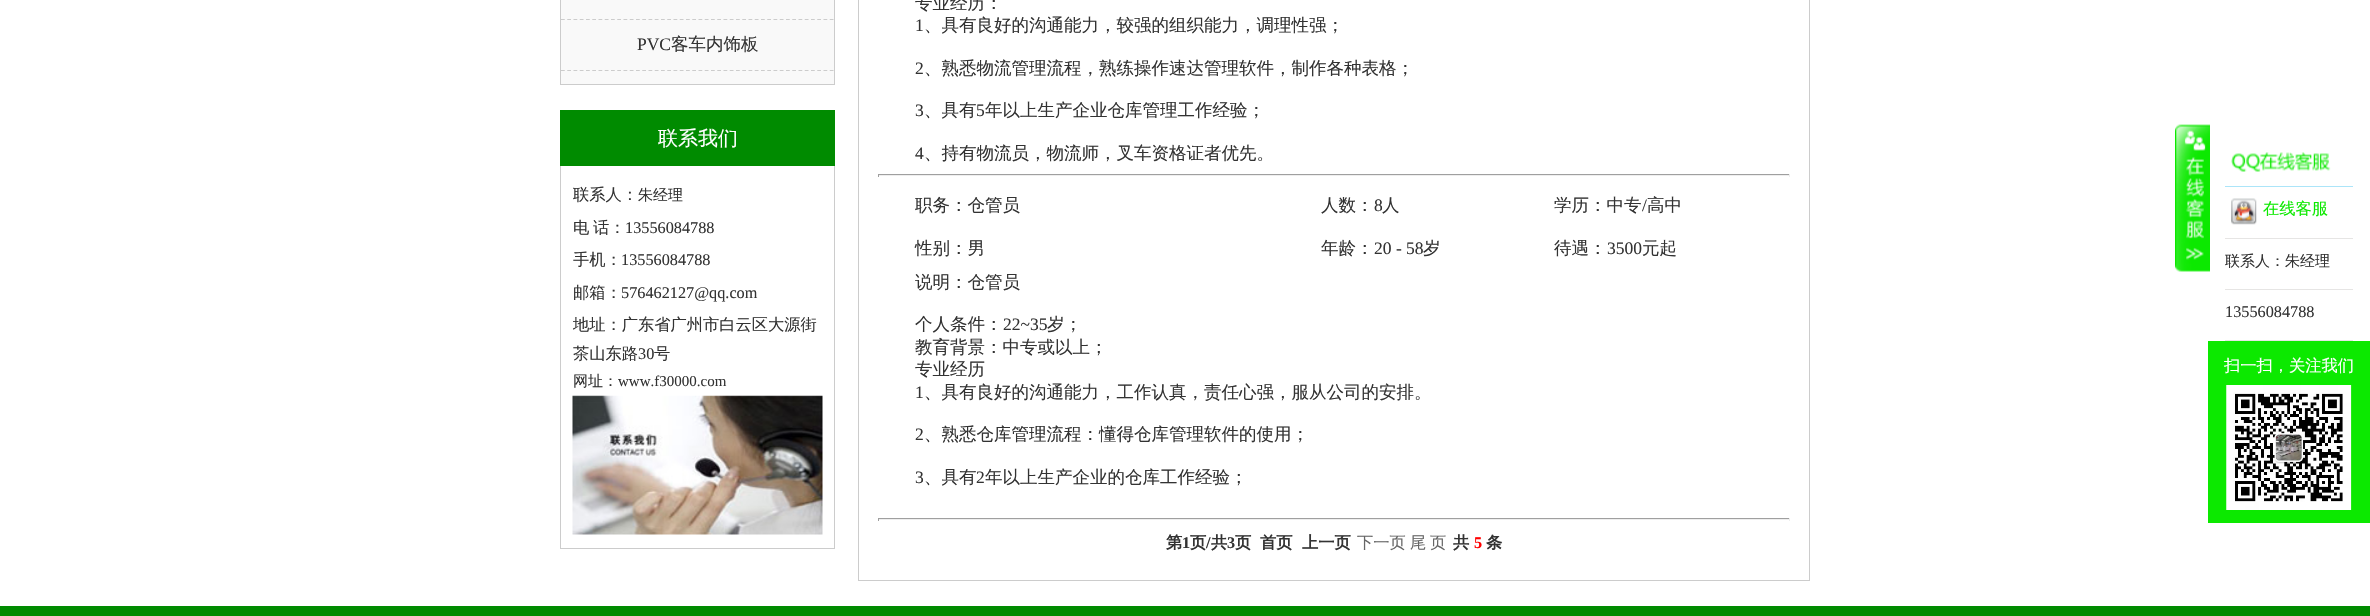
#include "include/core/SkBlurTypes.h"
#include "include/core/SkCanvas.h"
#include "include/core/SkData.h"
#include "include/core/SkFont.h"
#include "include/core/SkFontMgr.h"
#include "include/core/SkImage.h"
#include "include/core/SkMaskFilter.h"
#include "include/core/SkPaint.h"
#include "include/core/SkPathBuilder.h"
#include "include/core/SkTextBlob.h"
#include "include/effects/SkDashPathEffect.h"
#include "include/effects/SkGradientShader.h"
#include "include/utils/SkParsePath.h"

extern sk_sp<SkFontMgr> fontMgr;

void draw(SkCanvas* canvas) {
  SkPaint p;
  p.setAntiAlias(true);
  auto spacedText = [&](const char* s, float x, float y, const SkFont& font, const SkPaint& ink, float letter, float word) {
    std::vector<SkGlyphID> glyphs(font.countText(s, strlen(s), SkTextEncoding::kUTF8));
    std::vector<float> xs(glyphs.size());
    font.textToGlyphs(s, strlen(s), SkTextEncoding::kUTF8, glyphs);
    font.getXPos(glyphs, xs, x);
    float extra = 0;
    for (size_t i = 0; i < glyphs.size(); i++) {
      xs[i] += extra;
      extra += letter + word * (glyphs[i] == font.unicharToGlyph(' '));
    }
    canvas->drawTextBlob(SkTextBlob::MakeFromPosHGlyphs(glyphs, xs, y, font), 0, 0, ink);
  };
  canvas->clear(SK_ColorWHITE);
  p.setColor(SkColorSetRGB(249, 249, 249));
  canvas->drawRect(SkRect::MakeLTRB(561, 0, 834, 84), p);
  p.setColor(SkColorSetRGB(204, 204, 204));
  canvas->drawRect(SkRect::MakeLTRB(834, 0, 835, 85), p);
  canvas->drawRect(SkRect::MakeLTRB(560, 84, 835, 85), p);
  canvas->drawRect(SkRect::MakeLTRB(560, 0, 561, 85), p);
  p.setStyle(SkPaint::kStroke_Style);
  p.setStrokeWidth(1.2f);
  p.setPathEffect(SkDashPathEffect::Make({{3.75f, 2.5f}}, 0));
  canvas->drawPath(SkPathBuilder().moveTo(561, 70.5f).lineTo(834, 70.5f).detach(), p);
  p.setPathEffect(nullptr);
  p.setPathEffect(SkDashPathEffect::Make({{3.75f, 2.5f}}, 0));
  canvas->drawPath(SkPathBuilder().moveTo(561, 19.5f).lineTo(834, 19.5f).detach(), p);
  p.setPathEffect(nullptr);
  p.setStyle(SkPaint::kFill_Style);
  p.setColor(SkColorSetRGB(0, 139, 0));
  canvas->drawRect(SkRect::MakeLTRB(560, 110, 835, 166), p);
  p.setColor(SkColorSetRGB(204, 204, 204));
  canvas->drawRect(SkRect::MakeLTRB(834, 166, 835, 549), p);
  canvas->drawRect(SkRect::MakeLTRB(560, 548, 835, 549), p);
  canvas->drawRect(SkRect::MakeLTRB(560, 166, 561, 549), p);
  canvas->drawImageRect(SkImages::DeferredFromEncodedData(SkData::MakeFromFileName("images/1.png")), SkRect::MakeLTRB(572, 395, 823, 535), SkSamplingOptions());
  p.setStyle(SkPaint::kStroke_Style);
  p.setStrokeWidth(1);
  canvas->drawRect(SkRect::MakeLTRB(858.5f, -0.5f, 1809.5f, 580.5f), p);
  p.setStyle(SkPaint::kFill_Style);
  p.setColor(SkColorSetRGB(159, 159, 159));
  canvas->drawRect(SkRect::MakeLTRB(878, 174, 1790, 175), p);
  p.setColor(SkColorSetRGB(238, 238, 238));
  canvas->drawRect(SkRect::MakeLTRB(1789, 174, 1790, 177), p);
  canvas->drawRect(SkRect::MakeLTRB(878, 175, 1790, 176), p);
  p.setColor(SkColorSetRGB(159, 159, 159));
  canvas->drawRect(SkRect::MakeLTRB(878, 174, 879, 177), p);
  canvas->drawRect(SkRect::MakeLTRB(878, 518, 1790, 519), p);
  p.setColor(SkColorSetRGB(238, 238, 238));
  canvas->drawRect(SkRect::MakeLTRB(1789, 518, 1790, 521), p);
  canvas->drawRect(SkRect::MakeLTRB(878, 519, 1790, 520), p);
  p.setColor(SkColorSetRGB(159, 159, 159));
  canvas->drawRect(SkRect::MakeLTRB(878, 518, 879, 521), p);
  canvas->drawImageRect(SkImages::DeferredFromEncodedData(SkData::MakeFromFileName("images/2.png")), SkRect::MakeLTRB(2175, 124, 2210, 272), SkSamplingOptions());
  p.setColor(SkColorSetRGB(172, 229, 249));
  canvas->drawRect(SkRect::MakeLTRB(2225, 186, 2353, 187), p);
  canvas->drawImageRect(SkImages::DeferredFromEncodedData(SkData::MakeFromFileName("images/3.png")), SkRect::MakeLTRB(2231, 152, 2331, 172), SkSamplingOptions());
  p.setColor(SkColorSetRGB(230, 229, 228));
  canvas->drawRect(SkRect::MakeLTRB(2225, 238, 2353, 239), p);
  canvas->drawImageRect(SkImages::DeferredFromEncodedData(SkData::MakeFromFileName("images/4.png")), SkRect::MakeLTRB(2231, 198, 2257, 225), SkSamplingOptions());
  canvas->drawRect(SkRect::MakeLTRB(2225, 289, 2353, 290), p);
  canvas->drawRect(SkRect::MakeLTRB(2225, 340, 2353, 341), p);
  p.setColor(SkColorSetRGB(12, 233, 0));
  canvas->drawRect(SkRect::MakeLTRB(2208, 341, 2370, 523), p);
  canvas->drawImageRect(SkImages::DeferredFromEncodedData(SkData::MakeFromFileName("images/5.png")), SkRect::MakeLTRB(2226, 385, 2352, 510), SkSamplingOptions());
  p.setColor(SkColorSetRGB(0, 139, 0));
  canvas->drawRect(SkRect::MakeLTRB(0, 606, 2370, 616), p);
  SkFont font1(fontMgr->matchFamilyStyle("Liberation Serif", SkFontStyle::Normal()), 17.5f);
  font1.setSubpixel(true);
  p.setColor(SkColorSetRGB(51, 51, 51));
  canvas->drawString("PVC", 637, 50, font1, p);
  SkFont font2(fontMgr->matchFamilyStyle("WenQuanYi Zen Hei", SkFontStyle(500, SkFontStyle::kNormal_Width, SkFontStyle::kUpright_Slant)), 17.5f);
  font2.setSubpixel(true);
  canvas->drawString("客车内饰板", 671, 50, font2, p);
  SkFont font3(fontMgr->matchFamilyStyle("WenQuanYi Zen Hei", SkFontStyle(500, SkFontStyle::kNormal_Width, SkFontStyle::kUpright_Slant)), 20);
  font3.setSubpixel(true);
  p.setColor(SK_ColorWHITE);
  canvas->drawString("联系我们", 658, 145, font3, p);
  SkFont font4(fontMgr->matchFamilyStyle("WenQuanYi Zen Hei", SkFontStyle(500, SkFontStyle::kNormal_Width, SkFontStyle::kUpright_Slant)), 16.25f);
  font4.setSubpixel(true);
  p.setColor(SkColorSetRGB(51, 51, 51));
  canvas->drawString("联系人：", 573, 200, font4, p);
  SkFont font5(fontMgr->matchFamilyStyle("WenQuanYi Zen Hei", SkFontStyle(500, SkFontStyle::kNormal_Width, SkFontStyle::kUpright_Slant)), 15);
  font5.setSubpixel(true);
  canvas->drawString("朱经理", 638, 200, font5, p);
  spacedText("电 话：", 573, 233, font4, p, 0, -1);
  SkFont font6(fontMgr->matchFamilyStyle("Liberation Serif", SkFontStyle::Normal()), 16.25f);
  font6.setSubpixel(true);
  canvas->drawString("13556084788", 625, 233, font6, p);
  canvas->drawString("手机：", 573, 265, font4, p);
  canvas->drawString("13556084788", 621, 265, font6, p);
  canvas->drawString("邮箱：", 573, 298, font4, p);
  canvas->drawString("576462127@qq.com", 621, 298, font6, p);
  canvas->drawString("地址：广东省广州市白云区大源街", 573, 330, font4, p);
  canvas->drawString("茶山东路", 573, 359, font4, p);
  canvas->drawString("30", 638, 359, font6, p);
  canvas->drawString("号", 654, 359, font4, p);
  canvas->drawString("网址：", 573, 386, font5, p);
  SkFont font7(fontMgr->matchFamilyStyle("Liberation Serif", SkFontStyle::Normal()), 15);
  font7.setSubpixel(true);
  canvas->drawString("www.f30000.com", 618, 386, font7, p);
  canvas->drawString("专业经历：", 915, 9, font2, p);
  canvas->drawString("1", 915, 31, font1, p);
  canvas->drawString("、具有良好的沟通能力，较强的组织能力，调理性强；", 924, 31, font2, p);
  canvas->drawString("2", 915, 74, font1, p);
  canvas->drawString("、熟悉物流管理流程，熟练操作速达管理软件，制作各种表格；", 924, 74, font2, p);
  canvas->drawString("3", 915, 116, font1, p);
  canvas->drawString("、具有", 924, 116, font2, p);
  canvas->drawString("5", 976, 116, font1, p);
  canvas->drawString("年以上生产企业仓库管理工作经验；", 985, 116, font2, p);
  canvas->drawString("4", 915, 159, font1, p);
  canvas->drawString("、持有物流员，物流师，叉车资格证者优先。", 924, 159, font2, p);
  canvas->drawString("职务：仓管员", 915, 211, font2, p);
  canvas->drawString("人数：", 1321, 211, font2, p);
  canvas->drawString("8", 1374, 211, font1, p);
  canvas->drawString("人", 1382, 211, font2, p);
  canvas->drawString("学历：中专", 1554, 211, font2, p);
  canvas->drawString("/", 1642, 211, font1, p);
  canvas->drawString("高中", 1647, 211, font2, p);
  canvas->drawString("性别：男", 915, 254, font2, p);
  canvas->drawString("年龄：", 1321, 254, font2, p);
  canvas->drawString("20 - 58", 1374, 254, font1, p);
  canvas->drawString("岁", 1423, 254, font2, p);
  canvas->drawString("待遇：", 1554, 254, font2, p);
  canvas->drawString("3500", 1607, 254, font1, p);
  canvas->drawString("元起", 1642, 254, font2, p);
  canvas->drawString("说明：仓管员", 915, 288, font2, p);
  canvas->drawString("个人条件：", 915, 330, font2, p);
  canvas->drawString("22~35", 1003, 330, font1, p);
  canvas->drawString("岁；", 1047, 330, font2, p);
  canvas->drawString("教育背景：中专或以上；", 915, 353, font2, p);
  canvas->drawString("专业经历", 915, 375, font2, p);
  canvas->drawString("1", 915, 398, font1, p);
  canvas->drawString("、具有良好的沟通能力，工作认真，责任心强，服从公司的安排。", 924, 398, font2, p);
  canvas->drawString("2", 915, 440, font1, p);
  canvas->drawString("、熟悉仓库管理流程：懂得仓库管理软件的使用；", 924, 440, font2, p);
  canvas->drawString("3", 915, 483, font1, p);
  canvas->drawString("、具有", 924, 483, font2, p);
  canvas->drawString("2", 976, 483, font1, p);
  canvas->drawString("年以上生产企业的仓库工作经验；", 985, 483, font2, p);
  SkFont font8(fontMgr->matchFamilyStyle("WenQuanYi Zen Hei", SkFontStyle::Bold()), 16.25f);
  font8.setSubpixel(true);
  canvas->drawString("第", 1166, 548, font8, p);
  SkFont font9(fontMgr->matchFamilyStyle("Liberation Serif", SkFontStyle::Bold()), 16.25f);
  font9.setSubpixel(true);
  canvas->drawString("1", 1182, 548, font9, p);
  canvas->drawString("页", 1190, 548, font8, p);
  canvas->drawString("/", 1206, 548, font9, p);
  canvas->drawString("共", 1211, 548, font8, p);
  canvas->drawString("3", 1227, 548, font9, p);
  canvas->drawString("页", 1235, 548, font8, p);
  canvas->drawString("首页", 1260, 548, font8, p);
  canvas->drawString("上一页", 1302, 548, font8, p);
  p.setColor(SkColorSetRGB(102, 102, 102));
  canvas->drawString("下一页", 1357, 548, font4, p);
  spacedText("尾 页", 1410, 548, font4, p, 0, -1);
  p.setColor(SkColorSetRGB(51, 51, 51));
  canvas->drawString("共", 1453, 548, font8, p);
  p.setColor(SkColorSetRGB(255, 0, 0));
  canvas->drawString("5", 1474, 548, font9, p);
  p.setColor(SkColorSetRGB(51, 51, 51));
  canvas->drawString("条", 1486, 548, font8, p);
  p.setColor(SkColorSetRGB(12, 233, 0));
  canvas->drawString("在线客服", 2263, 214, font4, p);
  p.setColor(SkColorSetRGB(51, 51, 51));
  canvas->drawString("联系人：朱经理", 2225, 266, font5, p);
  canvas->drawString("13556084788", 2225, 317, font6, p);
  p.setColor(SK_ColorWHITE);
  canvas->drawString("扫一扫，关注我们", 2224, 371, font4, p);
}
